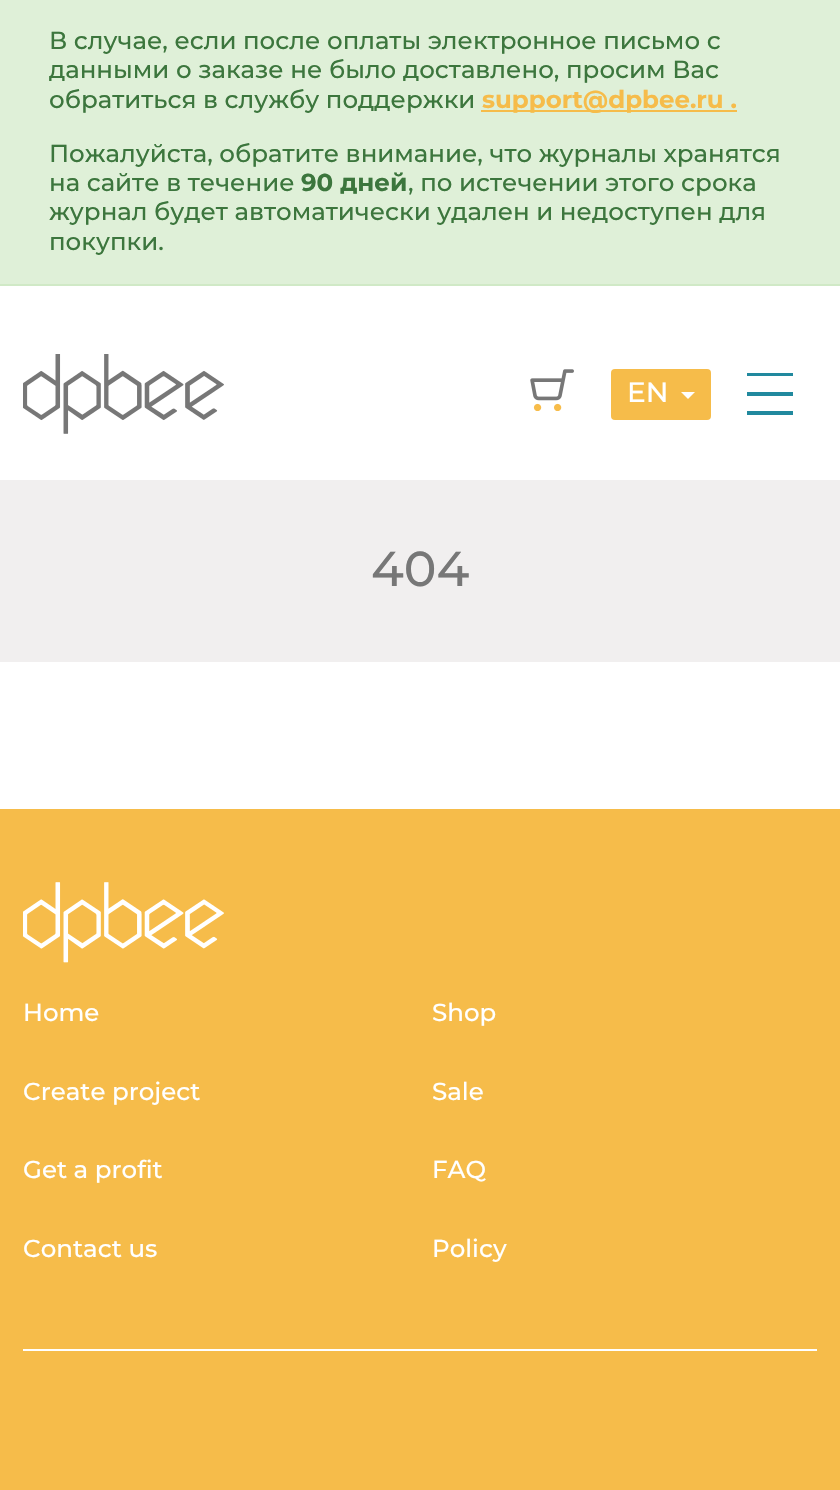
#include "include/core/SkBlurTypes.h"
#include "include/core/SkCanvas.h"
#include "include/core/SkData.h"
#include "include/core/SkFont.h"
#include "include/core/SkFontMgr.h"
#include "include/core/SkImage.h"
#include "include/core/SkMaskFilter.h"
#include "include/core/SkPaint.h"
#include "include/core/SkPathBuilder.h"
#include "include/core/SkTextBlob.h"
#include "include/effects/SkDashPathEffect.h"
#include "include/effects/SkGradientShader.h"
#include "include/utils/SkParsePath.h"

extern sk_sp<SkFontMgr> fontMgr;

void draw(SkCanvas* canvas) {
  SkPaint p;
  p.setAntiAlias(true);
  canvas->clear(SK_ColorWHITE);
  p.setColor(SkColorSetRGB(223, 240, 216));
  canvas->drawRect(SkRect::MakeLTRB(0, 0, 840, 284), p);
  p.setColor(SkColorSetRGB(208, 233, 198));
  canvas->drawRect(SkRect::MakeLTRB(0, 284, 840, 286), p);
  p.setColor(SkColorSetRGB(246, 188, 74));
  canvas->drawRect(SkRect::MakeLTRB(481, 110, 737, 112), p);
  canvas->drawImageRect(SkImages::DeferredFromEncodedData(SkData::MakeFromFileName("images/1.png")), SkRect::MakeLTRB(23, 354, 224, 434), SkSamplingOptions());
  canvas->drawImageRect(SkImages::DeferredFromEncodedData(SkData::MakeFromFileName("images/2.png")), SkRect::MakeLTRB(530, 369, 574, 411), SkSamplingOptions());
  canvas->drawRoundRect(SkRect::MakeLTRB(611, 369, 711, 420), 4, 4, p);
  p.setColor(SK_ColorWHITE);
  canvas->drawPath(SkPathBuilder().moveTo(681, 392).lineTo(695, 392).lineTo(688, 399).close().detach(), p);
  p.setColor(SkColorSetRGB(33, 137, 158));
  canvas->drawRect(SkRect::MakeLTRB(747, 373, 793, 376), p);
  canvas->drawRect(SkRect::MakeLTRB(747, 392, 793, 396), p);
  canvas->drawRect(SkRect::MakeLTRB(747, 411, 793, 415), p);
  p.setColor(SkColorSetRGB(241, 239, 239));
  canvas->drawRect(SkRect::MakeLTRB(0, 480, 840, 662), p);
  p.setColor(SkColorSetRGB(246, 188, 74));
  canvas->drawRect(SkRect::MakeLTRB(0, 809, 840, 1490), p);
  canvas->drawImageRect(SkImages::DeferredFromEncodedData(SkData::MakeFromFileName("images/3.png")), SkRect::MakeLTRB(23, 882, 224, 963), SkSamplingOptions());
  p.setColor(SK_ColorWHITE);
  canvas->drawRect(SkRect::MakeLTRB(23, 1349, 817, 1351), p);
  SkFont font1(fontMgr->matchFamilyStyle("Montserrat", SkFontStyle(500, SkFontStyle::kNormal_Width, SkFontStyle::kUpright_Slant)), 24.5f);
  font1.setSubpixel(true);
  p.setColor(SkColorSetRGB(60, 118, 61));
  canvas->drawString("В случае, если после оплаты электронное письмо с", 49, 49, font1, p);
  canvas->drawString("данными о заказе не было доставлено, просим Вас", 49, 78, font1, p);
  canvas->drawString("обратиться в службу поддержки", 49, 108, font1, p);
  SkFont font2(fontMgr->matchFamilyStyle("Montserrat", SkFontStyle::Bold()), 24.5f);
  font2.setSubpixel(true);
  p.setColor(SkColorSetRGB(246, 188, 74));
  canvas->drawString("support@dpbee.ru .", 482, 108, font2, p);
  p.setColor(SkColorSetRGB(60, 118, 61));
  canvas->drawString("Пожалуйста, обратите внимание, что журналы хранятся", 49, 162, font1, p);
  canvas->drawString("на сайте в течение", 49, 191, font1, p);
  canvas->drawString("90 дней", 301, 191, font2, p);
  canvas->drawString(", по истечении этого срока", 408, 191, font1, p);
  canvas->drawString("журнал будет автоматически удален и недоступен для", 49, 220, font1, p);
  canvas->drawString("покупки.", 49, 250, font1, p);
  SkFont font3(fontMgr->matchFamilyStyle("Montserrat", SkFontStyle(500, SkFontStyle::kNormal_Width, SkFontStyle::kUpright_Slant)), 28);
  font3.setSubpixel(true);
  p.setColor(SK_ColorWHITE);
  canvas->drawString("EN", 627, 402, font3, p);
  SkFont font4(fontMgr->matchFamilyStyle("Montserrat", SkFontStyle(500, SkFontStyle::kNormal_Width, SkFontStyle::kUpright_Slant)), 49);
  font4.setSubpixel(true);
  p.setColor(SkColorSetRGB(119, 119, 119));
  canvas->drawString("404", 371, 586, font4, p);
  p.setColor(SK_ColorWHITE);
  canvas->drawString("Home", 23, 1021, font1, p);
  canvas->drawString("Shop", 432, 1021, font1, p);
  canvas->drawString("Create project", 23, 1100, font1, p);
  canvas->drawString("Sale", 432, 1100, font1, p);
  canvas->drawString("Get a profit", 23, 1178, font1, p);
  canvas->drawString("FAQ", 432, 1178, font1, p);
  canvas->drawString("Contact us", 23, 1257, font1, p);
  canvas->drawString("Policy", 432, 1257, font1, p);
}
